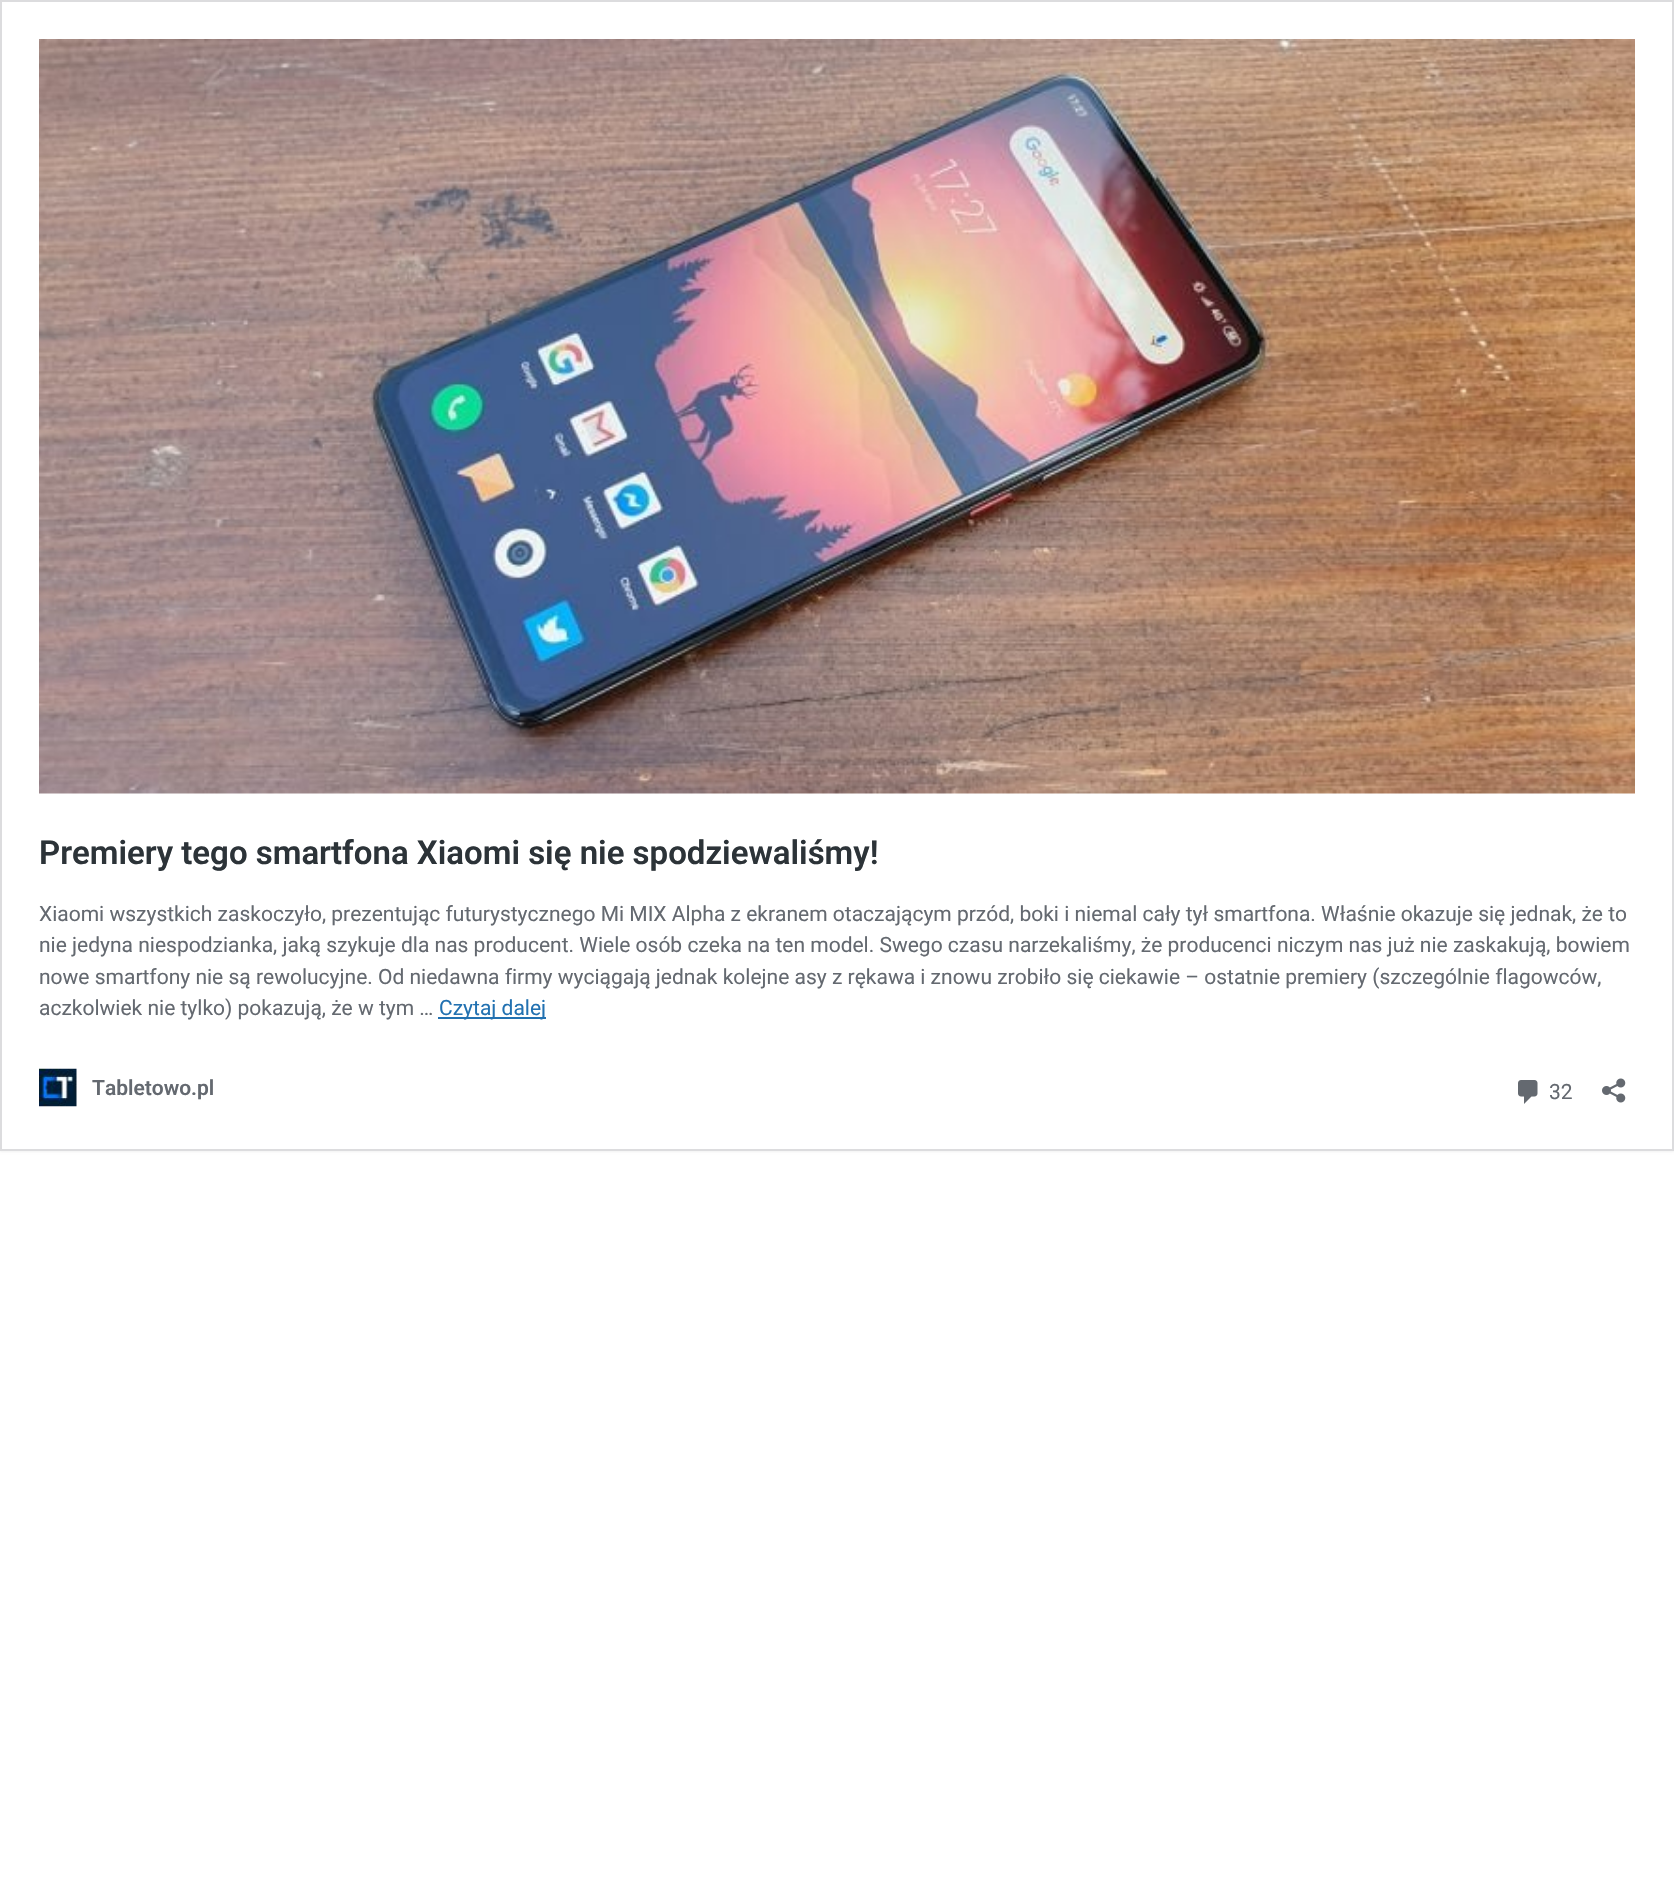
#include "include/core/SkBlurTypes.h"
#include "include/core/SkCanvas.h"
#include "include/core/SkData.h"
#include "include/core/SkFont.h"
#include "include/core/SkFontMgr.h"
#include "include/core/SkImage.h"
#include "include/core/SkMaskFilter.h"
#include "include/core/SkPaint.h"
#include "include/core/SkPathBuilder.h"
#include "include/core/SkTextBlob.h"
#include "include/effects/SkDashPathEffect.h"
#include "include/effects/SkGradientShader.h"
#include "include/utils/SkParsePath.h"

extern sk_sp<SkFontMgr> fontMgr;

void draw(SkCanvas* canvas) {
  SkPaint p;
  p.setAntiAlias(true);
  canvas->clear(SK_ColorWHITE);
  p.setColor(SkColorSetARGB(13, 0, 0, 0));
  p.setMaskFilter(SkMaskFilter::MakeBlur(kNormal_SkBlurStyle, 1));
  canvas->drawRect(SkRect::MakeLTRB(0, 2, 1674, 1152), p);
  p.setMaskFilter(nullptr);
  p.setColor(SK_ColorWHITE);
  canvas->drawRect(SkRect::MakeLTRB(1, 1, 1673, 1150), p);
  p.setStyle(SkPaint::kStroke_Style);
  p.setStrokeWidth(2);
  p.setColor(SkColorSetRGB(220, 220, 222));
  canvas->drawRect(SkRect::MakeLTRB(1, 1, 1673, 1150), p);
  canvas->drawImageRect(SkImages::DeferredFromEncodedData(SkData::MakeFromFileName("images/1.png")), SkRect::MakeLTRB(39, 39, 1635, 794), SkSamplingOptions());
  p.setStyle(SkPaint::kFill_Style);
  p.setColor(SkColorSetRGB(34, 113, 177));
  canvas->drawRect(SkRect::MakeLTRB(438, 1017, 546, 1019), p);
  canvas->drawImageRect(SkImages::DeferredFromEncodedData(SkData::MakeFromFileName("images/2.png")), SkRect::MakeLTRB(39, 1068, 77, 1107), SkSamplingOptions());
  canvas->drawImageRect(SkImages::DeferredFromEncodedData(SkData::MakeFromFileName("images/3.png")), SkRect::MakeLTRB(1518, 1080, 1538, 1104), SkSamplingOptions());
  canvas->drawImageRect(SkImages::DeferredFromEncodedData(SkData::MakeFromFileName("images/4.png")), SkRect::MakeLTRB(1602, 1078, 1626, 1103), SkSamplingOptions());
  SkFont font1(fontMgr->matchFamilyStyle("Roboto", SkFontStyle(600, SkFontStyle::kNormal_Width, SkFontStyle::kUpright_Slant)), 33);
  font1.setSubpixel(true);
  p.setColor(SkColorSetRGB(44, 51, 56));
  canvas->drawString("Premiery tego smartfona Xiaomi się nie spodziewaliśmy!", 39, 864, font1, p);
  SkFont font2(fontMgr->matchFamilyStyle("Roboto", SkFontStyle::Normal()), 21);
  font2.setSubpixel(true);
  p.setColor(SkColorSetRGB(100, 105, 112));
  canvas->drawString("Xiaomi wszystkich zaskoczyło, prezentując futurystycznego Mi MIX Alpha z ekranem otaczającym przód, boki i niemal cały tył smartfona. Właśnie okazuje się jednak, że to", 39, 921, font2, p);
  canvas->drawString("nie jedyna niespodzianka, jaką szykuje dla nas producent. Wiele osób czeka na ten model. Swego czasu narzekaliśmy, że producenci niczym nas już nie zaskakują, bowiem", 39, 952, font2, p);
  canvas->drawString("nowe smartfony nie są rewolucyjne. Od niedawna firmy wyciągają jednak kolejne asy z rękawa i znowu zrobiło się ciekawie – ostatnie premiery (szczególnie flagowców,", 39, 984, font2, p);
  canvas->drawString("aczkolwiek nie tylko) pokazują, że w tym …", 39, 1015, font2, p);
  p.setColor(SkColorSetRGB(34, 113, 177));
  canvas->drawString("Czytaj dalej", 439, 1015, font2, p);
  SkFont font3(fontMgr->matchFamilyStyle("Roboto", SkFontStyle(600, SkFontStyle::kNormal_Width, SkFontStyle::kUpright_Slant)), 21);
  font3.setSubpixel(true);
  p.setColor(SkColorSetRGB(100, 105, 112));
  canvas->drawString("Tabletowo.pl", 92, 1095, font3, p);
  canvas->drawString("32", 1549, 1099, font2, p);
}
